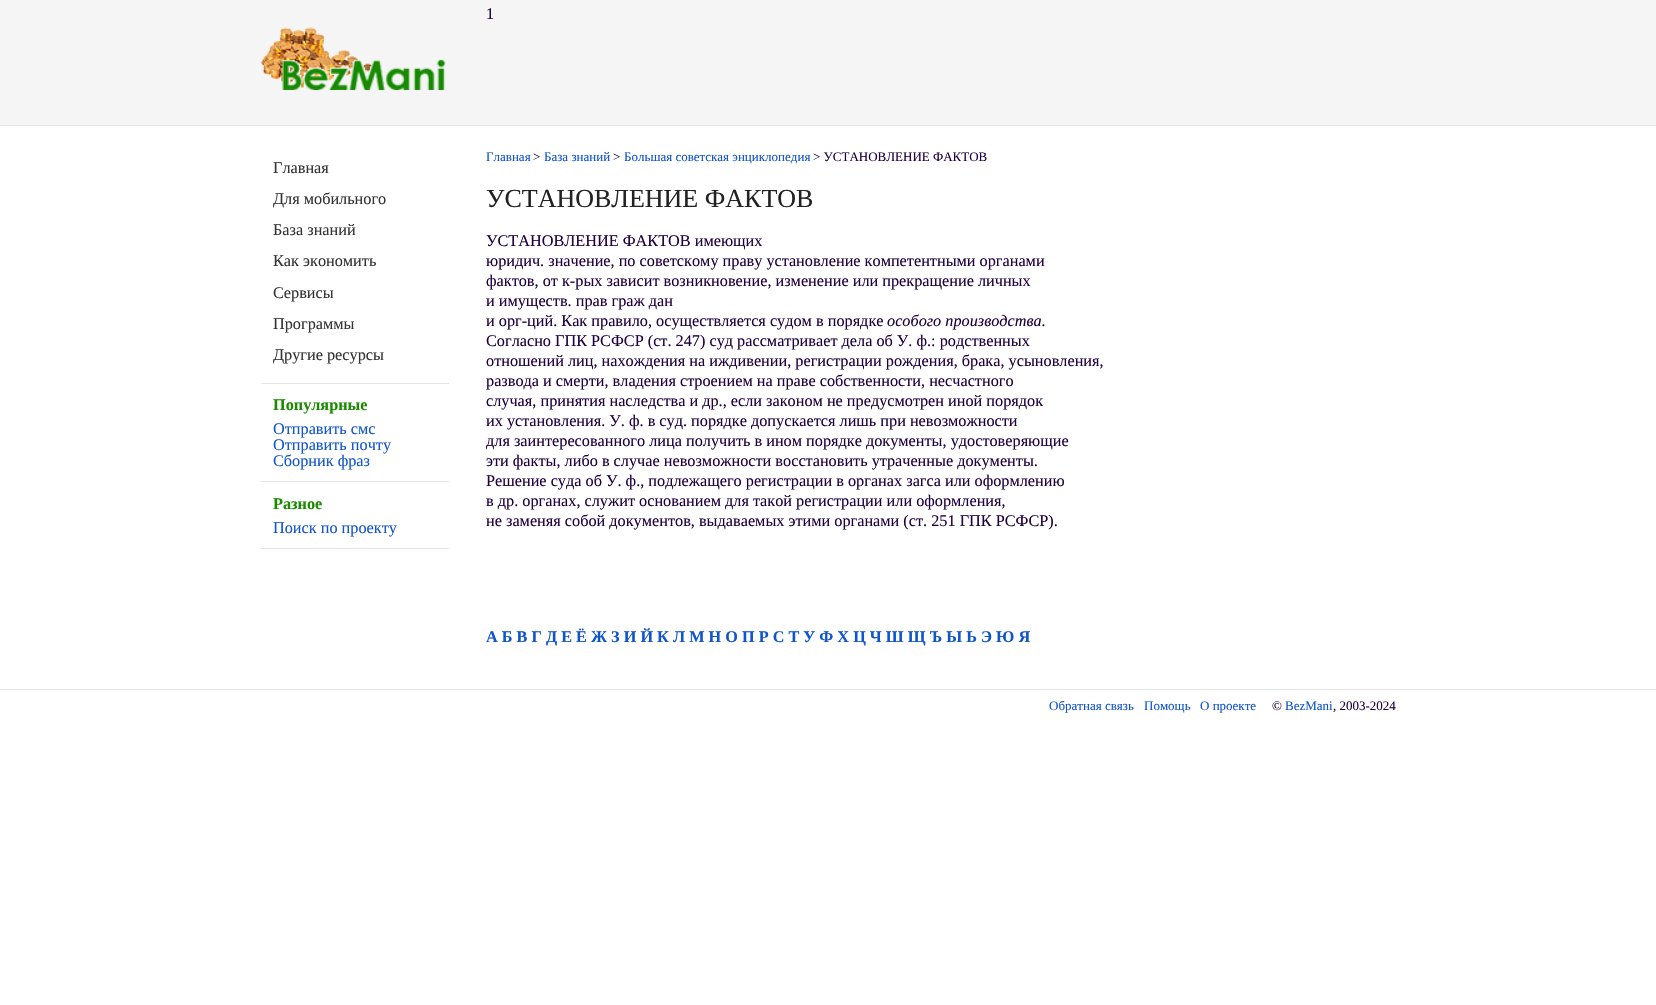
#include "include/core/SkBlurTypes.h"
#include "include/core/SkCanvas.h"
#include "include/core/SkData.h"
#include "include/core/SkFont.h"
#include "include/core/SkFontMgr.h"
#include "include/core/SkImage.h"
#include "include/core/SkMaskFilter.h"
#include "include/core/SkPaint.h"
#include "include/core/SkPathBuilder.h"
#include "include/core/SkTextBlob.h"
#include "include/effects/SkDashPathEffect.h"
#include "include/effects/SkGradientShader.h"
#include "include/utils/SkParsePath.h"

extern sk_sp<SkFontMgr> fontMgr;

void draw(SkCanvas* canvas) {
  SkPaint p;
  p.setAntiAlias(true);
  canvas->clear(SK_ColorWHITE);
  p.setColor(SkColorSetRGB(245, 245, 245));
  canvas->drawRect(SkRect::MakeLTRB(0, 0, 1656, 125), p);
  p.setColor(SkColorSetRGB(229, 229, 229));
  canvas->drawRect(SkRect::MakeLTRB(0, 125, 1656, 126), p);
  canvas->drawImageRect(SkImages::DeferredFromEncodedData(SkData::MakeFromFileName("images/1.png")), SkRect::MakeLTRB(261, 27, 446, 90), SkSamplingOptions());
  canvas->drawRect(SkRect::MakeLTRB(261, 383, 449, 384), p);
  canvas->drawRect(SkRect::MakeLTRB(261, 481, 449, 482), p);
  canvas->drawRect(SkRect::MakeLTRB(261, 548, 449, 549), p);
  canvas->drawRect(SkRect::MakeLTRB(0, 689, 1656, 690), p);
  SkFont font1(fontMgr->matchFamilyStyle("Liberation Serif", SkFontStyle::Normal()), 16.25f);
  font1.setSubpixel(true);
  p.setColor(SkColorSetRGB(32, 0, 64));
  canvas->drawString("1", 486, 19, font1, p);
  p.setColor(SkColorSetRGB(51, 51, 51));
  canvas->drawString("Главная", 273, 173, font1, p);
  canvas->drawString("Для мобильного", 273, 204, font1, p);
  canvas->drawString("База знаний", 273, 235, font1, p);
  canvas->drawString("Как экономить", 273, 266, font1, p);
  canvas->drawString("Сервисы", 273, 298, font1, p);
  canvas->drawString("Программы", 273, 329, font1, p);
  canvas->drawString("Другие ресурсы", 273, 360, font1, p);
  SkFont font2(fontMgr->matchFamilyStyle("Liberation Serif", SkFontStyle::Bold()), 16.25f);
  font2.setSubpixel(true);
  p.setColor(SkColorSetRGB(26, 139, 1));
  canvas->drawString("Популярные", 273, 410, font2, p);
  p.setColor(SkColorSetRGB(17, 85, 204));
  canvas->drawString("Отправить смс", 273, 434, font1, p);
  canvas->drawString("Отправить почту", 273, 450, font1, p);
  canvas->drawString("Сборник фраз", 273, 466, font1, p);
  p.setColor(SkColorSetRGB(26, 139, 1));
  canvas->drawString("Разное", 273, 509, font2, p);
  p.setColor(SkColorSetRGB(17, 85, 204));
  canvas->drawString("Поиск по проекту", 273, 533, font1, p);
  SkFont font3(fontMgr->matchFamilyStyle("Liberation Serif", SkFontStyle::Normal()), 13);
  font3.setSubpixel(true);
  canvas->drawString("Главная", 486, 161, font3, p);
  p.setColor(SkColorSetRGB(32, 0, 64));
  canvas->drawString(">", 533, 161, font3, p);
  p.setColor(SkColorSetRGB(17, 85, 204));
  canvas->drawString("База знаний", 544, 161, font3, p);
  p.setColor(SkColorSetRGB(32, 0, 64));
  canvas->drawString(">", 613, 161, font3, p);
  p.setColor(SkColorSetRGB(17, 85, 204));
  canvas->drawString("Большая советская энциклопедия", 624, 161, font3, p);
  p.setColor(SkColorSetRGB(32, 0, 64));
  canvas->drawString("> УСТАНОВЛЕНИЕ ФАКТОВ", 813, 161, font3, p);
  SkFont font4(fontMgr->matchFamilyStyle("Liberation Serif", SkFontStyle::Normal()), 26);
  font4.setSubpixel(true);
  p.setColor(SkColorSetRGB(34, 34, 34));
  canvas->drawString("УСТАНОВЛЕНИЕ ФАКТОВ", 486, 207, font4, p);
  p.setColor(SkColorSetRGB(32, 0, 64));
  canvas->drawString("УСТАНОВЛЕНИЕ ФАКТОВ имеющих", 486, 246, font1, p);
  canvas->drawString("юридич. значение, по советскому праву установление компетентными органами", 486, 266, font1, p);
  canvas->drawString("фактов, от к-рых зависит возникновение, изменение или прекращение личных", 486, 286, font1, p);
  canvas->drawString("и имуществ. прав граж дан", 486, 306, font1, p);
  canvas->drawString("и орг-ций. Как правило, осуществляется судом в порядке", 486, 326, font1, p);
  SkFont font5(fontMgr->matchFamilyStyle("Liberation Serif", SkFontStyle::Italic()), 16.25f);
  font5.setSubpixel(true);
  canvas->drawString("особого производства.", 887, 326, font5, p);
  canvas->drawString("Согласно ГПК РСФСР (ст. 247) суд рассматривает дела об У. ф.: родственных", 486, 346, font1, p);
  canvas->drawString("отношений лиц, нахождения на иждивении, регистрации рождения, брака, усыновления,", 486, 366, font1, p);
  canvas->drawString("развода и смерти, владения строением на праве собственности, несчастного", 486, 386, font1, p);
  canvas->drawString("случая, принятия наследства и др., если законом не предусмотрен иной порядок", 486, 406, font1, p);
  canvas->drawString("их установления. У. ф. в суд. порядке допускается лишь при невозможности", 486, 426, font1, p);
  canvas->drawString("для заинтересованного лица получить в ином порядке документы, удостоверяющие", 486, 446, font1, p);
  canvas->drawString("эти факты, либо в случае невозможности восстановить утраченные документы.", 486, 466, font1, p);
  canvas->drawString("Решение суда об У. ф., подлежащего регистрации в органах загса или оформлению", 486, 486, font1, p);
  canvas->drawString("в др. органах, служит основанием для такой регистрации или оформления,", 486, 506, font1, p);
  canvas->drawString("не заменяя собой документов, выдаваемых этими органами (ст. 251 ГПК РСФСР).", 486, 526, font1, p);
  p.setColor(SkColorSetRGB(17, 85, 204));
  canvas->drawString("А Б В Г Д Е Ё Ж З И Й К Л М Н О П Р С Т У Ф Х Ц Ч Ш Щ Ъ Ы Ь Э Ю Я", 486, 642, font2, p);
  canvas->drawString("Обратная связь", 1049, 710, font3, p);
  canvas->drawString("Помощь", 1144, 710, font3, p);
  canvas->drawString("О проекте", 1200, 710, font3, p);
  p.setColor(SkColorSetRGB(32, 0, 64));
  canvas->drawString("©", 1272, 710, font3, p);
  p.setColor(SkColorSetRGB(17, 85, 204));
  canvas->drawString("BezMani", 1285, 710, font3, p);
  p.setColor(SkColorSetRGB(32, 0, 64));
  canvas->drawString(", 2003-2024", 1333, 710, font3, p);
}
